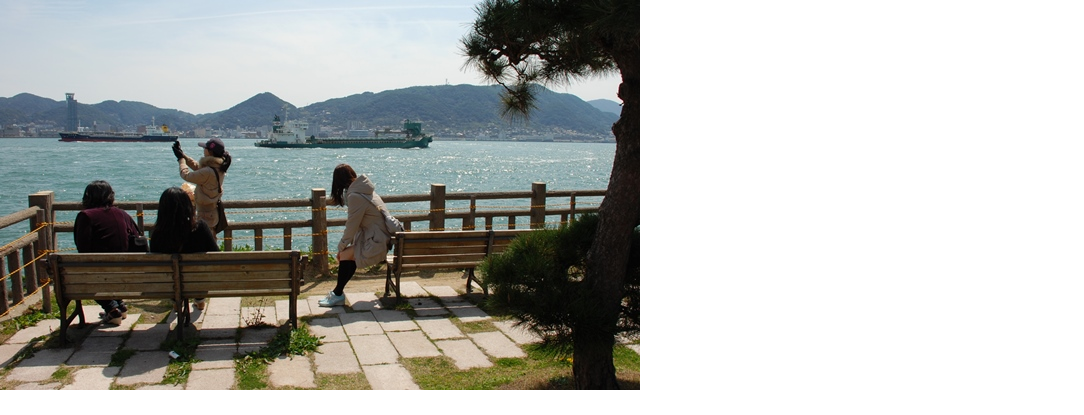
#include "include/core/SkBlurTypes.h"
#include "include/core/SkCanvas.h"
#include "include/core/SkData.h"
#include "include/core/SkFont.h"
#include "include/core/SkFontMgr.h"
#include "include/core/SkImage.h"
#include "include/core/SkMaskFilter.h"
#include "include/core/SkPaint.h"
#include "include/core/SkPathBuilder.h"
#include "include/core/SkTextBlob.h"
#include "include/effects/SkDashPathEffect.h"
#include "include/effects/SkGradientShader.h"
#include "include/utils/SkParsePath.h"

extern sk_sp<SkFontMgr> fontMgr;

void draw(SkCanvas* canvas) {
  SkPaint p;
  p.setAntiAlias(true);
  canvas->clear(SK_ColorWHITE);
  canvas->drawImageRect(SkImages::DeferredFromEncodedData(SkData::MakeFromFileName("images/1.png")), SkRect::MakeLTRB(0, 0, 640, 390), SkSamplingOptions());
}
